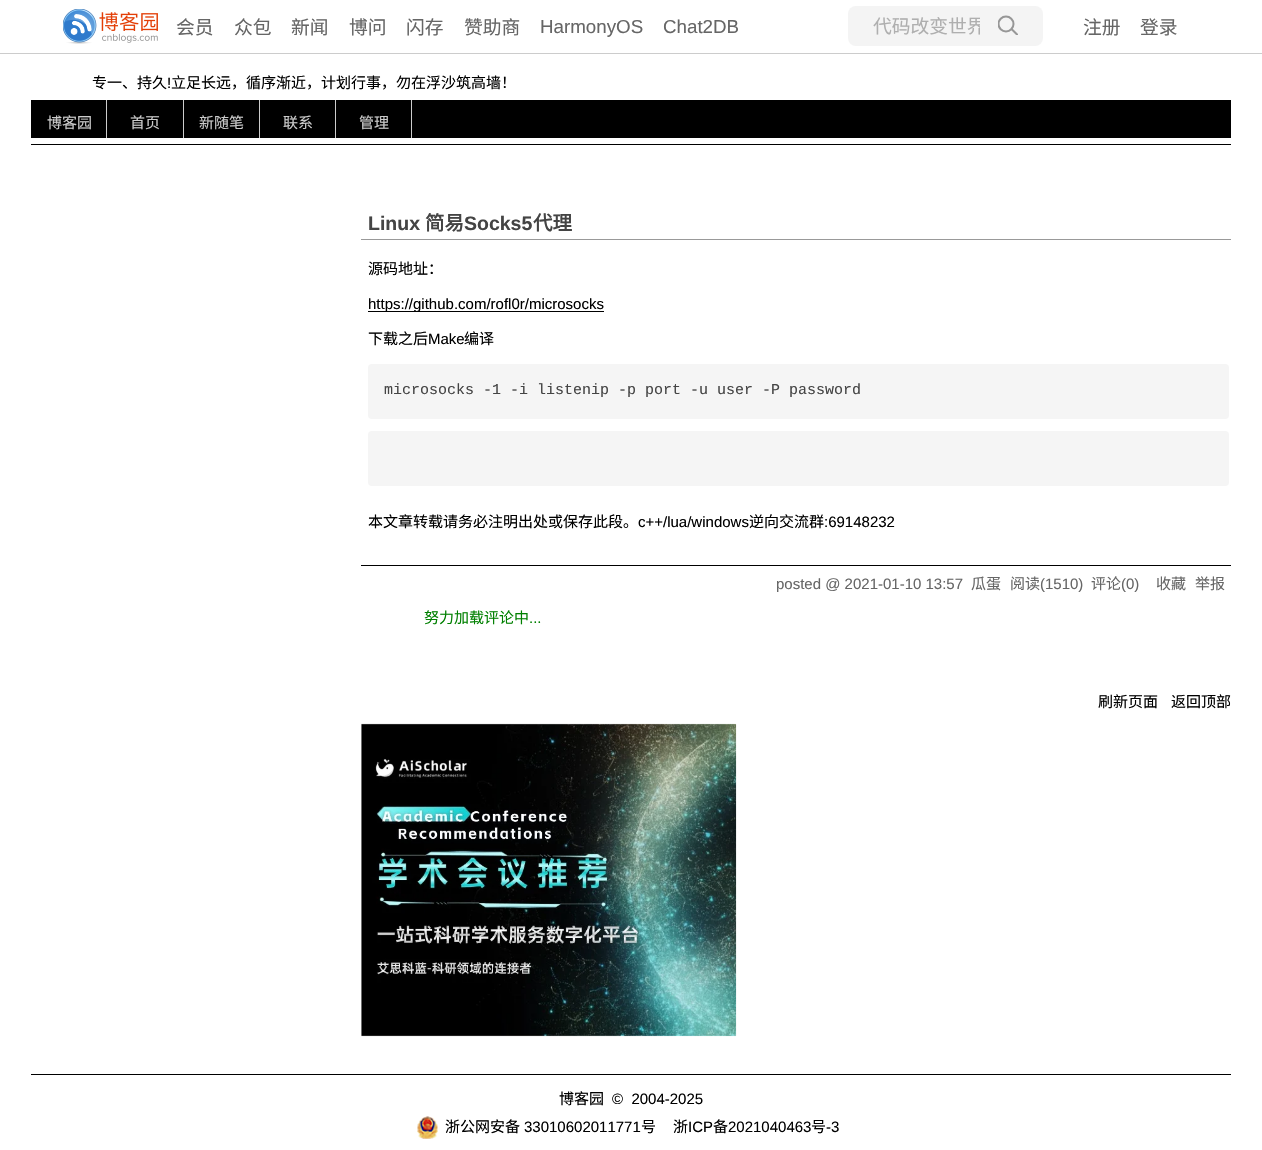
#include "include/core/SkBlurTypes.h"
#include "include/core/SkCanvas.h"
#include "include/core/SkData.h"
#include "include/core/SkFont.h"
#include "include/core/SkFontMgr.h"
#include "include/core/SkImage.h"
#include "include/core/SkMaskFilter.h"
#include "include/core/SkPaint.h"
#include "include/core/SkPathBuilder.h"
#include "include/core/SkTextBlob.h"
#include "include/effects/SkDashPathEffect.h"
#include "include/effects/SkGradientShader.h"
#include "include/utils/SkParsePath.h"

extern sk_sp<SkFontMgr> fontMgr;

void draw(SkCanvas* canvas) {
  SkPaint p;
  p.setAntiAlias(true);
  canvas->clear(SK_ColorWHITE);
  p.setColor(SkColorSetRGB(204, 204, 204));
  canvas->drawRect(SkRect::MakeLTRB(0, 53, 1262, 54), p);
  canvas->drawImageRect(SkImages::DeferredFromEncodedData(SkData::MakeFromFileName("images/1.png")), SkRect::MakeLTRB(63, 9, 158, 44), SkSamplingOptions());
  p.setColor(SkColorSetRGB(244, 244, 244));
  canvas->drawRoundRect(SkRect::MakeLTRB(848, 6, 1043, 46), 8, 8, p);
  canvas->save();
  canvas->clipRect(SkRect::MakeLTRB(998, 15, 1018, 35));
  p.setStyle(SkPaint::kStroke_Style);
  p.setStrokeWidth(2);
  p.setColor(SkColorSetRGB(151, 151, 151));
  canvas->drawCircle(1006, 24, 7.5f, p);
  canvas->drawPath(SkPathBuilder().moveTo(1011, 28.5f).lineTo(1019, 36.5f).detach(), p);
  canvas->restore();
  p.setStyle(SkPaint::kFill_Style);
  p.setColor(SK_ColorBLACK);
  canvas->drawRect(SkRect::MakeLTRB(31, 144, 1231, 145), p);
  canvas->drawRect(SkRect::MakeLTRB(31, 100, 1231, 138), p);
  p.setColor(SkColorSetRGB(204, 204, 204));
  canvas->drawRect(SkRect::MakeLTRB(106, 100, 107, 138), p);
  canvas->drawRect(SkRect::MakeLTRB(183, 100, 184, 138), p);
  canvas->drawRect(SkRect::MakeLTRB(259, 100, 260, 138), p);
  canvas->drawRect(SkRect::MakeLTRB(335, 100, 336, 138), p);
  canvas->drawRect(SkRect::MakeLTRB(411, 100, 412, 138), p);
  p.setColor(SkColorSetRGB(153, 153, 153));
  canvas->drawRect(SkRect::MakeLTRB(361, 239, 1231, 240), p);
  p.setColor(SK_ColorBLACK);
  canvas->drawRect(SkRect::MakeLTRB(361, 565, 1231, 566), p);
  canvas->drawRect(SkRect::MakeLTRB(368, 311, 604, 312), p);
  p.setColor(SkColorSetRGB(245, 245, 245));
  canvas->drawRoundRect(SkRect::MakeLTRB(368, 364, 1229, 419), 4, 4, p);
  canvas->drawRoundRect(SkRect::MakeLTRB(368, 431, 1229, 486), 4, 4, p);
  canvas->drawImageRect(SkImages::DeferredFromEncodedData(SkData::MakeFromFileName("images/2.png")), SkRect::MakeLTRB(361, 723, 737, 1037), SkSamplingOptions());
  p.setColor(SK_ColorBLACK);
  canvas->drawRect(SkRect::MakeLTRB(31, 1074, 1231, 1075), p);
  canvas->drawImageRect(SkImages::DeferredFromEncodedData(SkData::MakeFromFileName("images/3.png")), SkRect::MakeLTRB(417, 1116, 438, 1139), SkSamplingOptions());
  SkFont font1(fontMgr->matchFamilyStyle("Noto Sans CJK SC", SkFontStyle::Normal()), 18.75f);
  font1.setSubpixel(true);
  p.setColor(SkColorSetRGB(102, 102, 102));
  canvas->drawString("会员", 176, 34, font1, p);
  canvas->drawString("众包", 234, 34, font1, p);
  canvas->drawString("新闻", 291, 34, font1, p);
  canvas->drawString("博问", 349, 34, font1, p);
  canvas->drawString("闪存", 406, 34, font1, p);
  canvas->drawString("赞助商", 464, 34, font1, p);
  SkFont font2(fontMgr->matchFamilyStyle("Liberation Sans", SkFontStyle::Normal()), 18.75f);
  font2.setSubpixel(true);
  canvas->drawString("HarmonyOS", 540, 33, font2, p);
  canvas->drawString("Chat2DB", 663, 33, font2, p);
  canvas->save();
  canvas->clipRect(SkRect::MakeLTRB(873, 16, 980, 38));
  p.setColor(SkColorSetRGB(175, 175, 175));
  canvas->drawString("代码改变世界", 873, 33, font1, p);
  canvas->restore();
  p.setColor(SkColorSetRGB(102, 102, 102));
  canvas->drawString("注册", 1083, 34, font1, p);
  canvas->drawString("登录", 1140, 34, font1, p);
  SkFont font3(fontMgr->matchFamilyStyle("Noto Sans CJK SC", SkFontStyle::Normal()), 15);
  font3.setSubpixel(true);
  p.setColor(SK_ColorBLACK);
  canvas->drawString("专一、持久", 92, 88, font3, p);
  SkFont font4(fontMgr->matchFamilyStyle("Liberation Sans", SkFontStyle::Normal()), 15);
  font4.setSubpixel(true);
  canvas->drawString("!", 167, 88, font4, p);
  canvas->drawString("立足长远，循序渐近，计划行事，勿在浮沙筑高墙！", 171, 88, font3, p);
  p.setColor(SkColorSetRGB(204, 204, 204));
  canvas->drawString("博客园", 47, 128, font3, p);
  canvas->drawString("首页", 130, 128, font3, p);
  canvas->drawString("新随笔", 199, 128, font3, p);
  canvas->drawString("联系", 283, 128, font3, p);
  canvas->drawString("管理", 359, 128, font3, p);
  SkFont font5(fontMgr->matchFamilyStyle("Liberation Sans", SkFontStyle::Bold()), 19.5f);
  font5.setSubpixel(true);
  p.setColor(SkColorSetRGB(68, 68, 68));
  canvas->drawString("Linux", 368, 230, font5, p);
  SkFont font6(fontMgr->matchFamilyStyle("Noto Sans CJK SC", SkFontStyle::Bold()), 19.5f);
  font6.setSubpixel(true);
  canvas->drawString("简易", 425, 230, font6, p);
  canvas->drawString("Socks5", 464, 230, font5, p);
  canvas->drawString("代理", 533, 230, font6, p);
  p.setColor(SK_ColorBLACK);
  canvas->drawString("源码地址：", 368, 274, font3, p);
  canvas->drawString("https://github.com/rofl0r/microsocks", 368, 309, font4, p);
  canvas->drawString("下载之后", 368, 344, font3, p);
  canvas->drawString("Make", 428, 344, font4, p);
  canvas->drawString("编译", 464, 344, font3, p);
  SkFont font7(fontMgr->matchFamilyStyle("Liberation Mono", SkFontStyle::Normal()), 15);
  font7.setSubpixel(true);
  p.setColor(SkColorSetRGB(68, 68, 68));
  canvas->drawString("microsocks -1 -i listenip -p port -u user -P password", 384, 394, font7, p);
  p.setColor(SK_ColorBLACK);
  canvas->drawString("本文章转载请务必注明出处或保存此段。", 368, 527, font3, p);
  canvas->drawString("c++/lua/windows", 638, 527, font4, p);
  canvas->drawString("逆向交流群", 749, 527, font3, p);
  canvas->drawString(":69148232", 824, 527, font4, p);
  p.setColor(SkColorSetRGB(102, 102, 102));
  canvas->drawString("posted @ 2021-01-10 13:57", 776, 589, font4, p);
  canvas->drawString("瓜蛋", 971, 589, font3, p);
  canvas->drawString("阅读", 1010, 589, font3, p);
  canvas->drawString("(1510)", 1040, 589, font4, p);
  canvas->drawString("评论", 1091, 589, font3, p);
  canvas->drawString("(0)", 1121, 589, font4, p);
  canvas->drawString("收藏", 1156, 589, font3, p);
  canvas->drawString("举报", 1195, 589, font3, p);
  p.setColor(SkColorSetRGB(0, 128, 0));
  canvas->drawString("努力加载评论中", 424, 623, font3, p);
  canvas->drawString("...", 529, 623, font4, p);
  p.setColor(SK_ColorBLACK);
  canvas->drawString("刷新页面", 1098, 707, font3, p);
  canvas->drawString("返回顶部", 1171, 707, font3, p);
  canvas->drawString("博客园", 559, 1104, font3, p);
  canvas->drawString("©  2004-2025", 612, 1104, font4, p);
  canvas->drawString("浙公网安备", 445, 1132, font3, p);
  canvas->drawString("33010602011771", 524, 1132, font4, p);
  canvas->drawString("号", 641, 1132, font3, p);
  canvas->drawString("浙", 673, 1132, font3, p);
  canvas->drawString("ICP", 688, 1132, font4, p);
  canvas->drawString("备", 713, 1132, font3, p);
  canvas->drawString("2021040463", 728, 1132, font4, p);
  canvas->drawString("号", 811, 1132, font3, p);
  canvas->drawString("-3", 826, 1132, font4, p);
}
